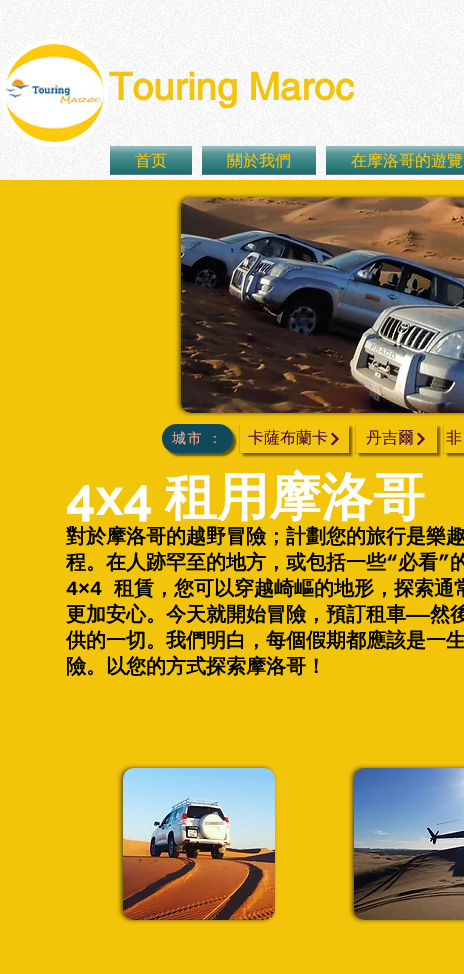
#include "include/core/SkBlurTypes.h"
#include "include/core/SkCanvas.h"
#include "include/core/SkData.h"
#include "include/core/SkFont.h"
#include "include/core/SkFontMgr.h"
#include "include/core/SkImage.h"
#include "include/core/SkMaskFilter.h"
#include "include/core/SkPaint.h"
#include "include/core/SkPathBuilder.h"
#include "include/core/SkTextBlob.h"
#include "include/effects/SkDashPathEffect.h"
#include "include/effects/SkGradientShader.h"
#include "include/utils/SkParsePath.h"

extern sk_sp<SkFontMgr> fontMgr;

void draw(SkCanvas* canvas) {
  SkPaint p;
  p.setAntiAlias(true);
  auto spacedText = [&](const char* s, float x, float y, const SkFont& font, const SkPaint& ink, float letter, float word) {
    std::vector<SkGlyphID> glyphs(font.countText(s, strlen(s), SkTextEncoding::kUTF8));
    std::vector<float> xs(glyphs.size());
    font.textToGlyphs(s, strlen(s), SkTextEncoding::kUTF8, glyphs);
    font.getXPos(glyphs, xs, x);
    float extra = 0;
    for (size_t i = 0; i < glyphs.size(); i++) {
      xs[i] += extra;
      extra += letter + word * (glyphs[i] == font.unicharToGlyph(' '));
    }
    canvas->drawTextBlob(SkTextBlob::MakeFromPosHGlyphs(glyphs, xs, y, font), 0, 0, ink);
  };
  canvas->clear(SK_ColorWHITE);
  canvas->drawImageRect(SkImages::DeferredFromEncodedData(SkData::MakeFromFileName("images/1.png")), SkRect::MakeLTRB(0, 0, 464, 180), SkSamplingOptions());
  p.setColor(SK_ColorWHITE);
  canvas->drawRoundRect(SkRect::MakeLTRB(2.5f, 41.5f, 106.5f, 144.5f), 51.5f, 51.5f, p);
  p.setStyle(SkPaint::kStroke_Style);
  p.setStrokeWidth(5);
  canvas->drawRoundRect(SkRect::MakeLTRB(2.5f, 41.5f, 106.5f, 144.5f), 51.5f, 51.5f, p);
  canvas->drawImageRect(SkImages::DeferredFromEncodedData(SkData::MakeFromFileName("images/2.png")), SkRect::MakeLTRB(5, 44, 104, 142), SkSamplingOptions());
  p.setStyle(SkPaint::kFill_Style);
  p.setColor(SkColorSetARGB(153, 2, 34, 58));
  canvas->drawRect(SkRect::MakeLTRB(110, 174, 192, 175), p);
  p.setColor(SkColorSetRGB(0, 108, 109));
  canvas->drawRect(SkRect::MakeLTRB(110, 146, 192, 174), p);
  canvas->drawImageRect(SkImages::DeferredFromEncodedData(SkData::MakeFromFileName("images/3.png")), SkRect::MakeLTRB(110, 146, 192, 174), SkSamplingOptions());
  canvas->drawImageRect(SkImages::DeferredFromEncodedData(SkData::MakeFromFileName("images/4.png")), SkRect::MakeLTRB(110, 146, 192, 174), SkSamplingOptions());
  p.setColor(SkColorSetARGB(153, 2, 34, 58));
  canvas->drawRect(SkRect::MakeLTRB(202, 174, 316, 175), p);
  p.setColor(SkColorSetRGB(0, 108, 109));
  canvas->drawRect(SkRect::MakeLTRB(202, 146, 316, 174), p);
  canvas->drawImageRect(SkImages::DeferredFromEncodedData(SkData::MakeFromFileName("images/5.png")), SkRect::MakeLTRB(202, 146, 316, 174), SkSamplingOptions());
  canvas->drawImageRect(SkImages::DeferredFromEncodedData(SkData::MakeFromFileName("images/6.png")), SkRect::MakeLTRB(202, 146, 316, 174), SkSamplingOptions());
  p.setColor(SkColorSetARGB(153, 2, 34, 58));
  canvas->drawRect(SkRect::MakeLTRB(326, 174, 464, 175), p);
  p.setColor(SkColorSetRGB(0, 108, 109));
  canvas->drawRect(SkRect::MakeLTRB(326, 146, 464, 174), p);
  canvas->drawImageRect(SkImages::DeferredFromEncodedData(SkData::MakeFromFileName("images/7.png")), SkRect::MakeLTRB(326, 146, 464, 174), SkSamplingOptions());
  canvas->drawImageRect(SkImages::DeferredFromEncodedData(SkData::MakeFromFileName("images/8.png")), SkRect::MakeLTRB(326, 146, 464, 174), SkSamplingOptions());
  p.setColor(SkColorSetRGB(242, 196, 10));
  canvas->drawRect(SkRect::MakeLTRB(0, 180, 464, 974), p);
  p.setColor(SkColorSetARGB(153, 0, 0, 0));
  p.setMaskFilter(SkMaskFilter::MakeBlur(kNormal_SkBlurStyle, 2));
  canvas->drawRoundRect(SkRect::MakeLTRB(179, 197, 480, 413), 10, 10, p);
  p.setMaskFilter(nullptr);
  canvas->drawImageRect(SkImages::DeferredFromEncodedData(SkData::MakeFromFileName("images/9.png")), SkRect::MakeLTRB(181, 197, 464, 413), SkSamplingOptions());
  p.setColor(SkColorSetARGB(31, 0, 0, 0));
  p.setMaskFilter(SkMaskFilter::MakeBlur(kNormal_SkBlurStyle, 1));
  canvas->drawRoundRect(SkRect::MakeLTRB(165, 427, 236, 456), 14.5f, 14.5f, p);
  p.setMaskFilter(nullptr);
  p.setColor(SkColorSetARGB(128, 0, 0, 0));
  p.setMaskFilter(SkMaskFilter::MakeBlur(kNormal_SkBlurStyle, 1));
  canvas->drawRoundRect(SkRect::MakeLTRB(165, 427, 236, 456), 14.5f, 14.5f, p);
  p.setMaskFilter(nullptr);
  p.setColor(SkColorSetRGB(15, 73, 91));
  canvas->drawRoundRect(SkRect::MakeLTRB(162, 424, 233, 453), 14.5f, 14.5f, p);
  p.setColor(SkColorSetRGB(213, 172, 9));
  canvas->drawPath(SkPathBuilder().moveTo(239, 425).lineTo(239, 454).lineTo(348, 454).lineTo(348, 453).lineTo(240, 453).lineTo(240, 425).close().detach(), p);
  p.setColor(SkColorSetARGB(128, 0, 0, 0));
  p.setMaskFilter(SkMaskFilter::MakeBlur(kNormal_SkBlurStyle, 1));
  canvas->drawRect(SkRect::MakeLTRB(243, 427, 352, 456), p);
  p.setMaskFilter(nullptr);
  p.setColor(SkColorSetRGB(242, 197, 14));
  canvas->drawRect(SkRect::MakeLTRB(240, 424, 349, 453), p);
  canvas->drawImageRect(SkImages::DeferredFromEncodedData(SkData::MakeFromFileName("images/10.png")), SkRect::MakeLTRB(331, 432, 339, 446), SkSamplingOptions());
  p.setColor(SkColorSetRGB(213, 172, 9));
  canvas->drawPath(SkPathBuilder().moveTo(355, 425).lineTo(355, 454).lineTo(436, 454).lineTo(436, 453).lineTo(356, 453).lineTo(356, 425).close().detach(), p);
  canvas->save();
  canvas->clipPath(SkPathBuilder(SkPathFillType::kEvenOdd).moveTo(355, 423).lineTo(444, 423).lineTo(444, 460).lineTo(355, 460).close().moveTo(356, 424).lineTo(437, 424).lineTo(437, 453).lineTo(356, 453).close().detach(), true);
  p.setColor(SkColorSetARGB(128, 0, 0, 0));
  p.setMaskFilter(SkMaskFilter::MakeBlur(kNormal_SkBlurStyle, 1));
  canvas->drawRect(SkRect::MakeLTRB(359, 427, 440, 456), p);
  p.setMaskFilter(nullptr);
  canvas->restore();
  canvas->drawImageRect(SkImages::DeferredFromEncodedData(SkData::MakeFromFileName("images/11.png")), SkRect::MakeLTRB(417, 432, 425, 446), SkSamplingOptions());
  p.setColor(SkColorSetRGB(213, 172, 9));
  canvas->drawPath(SkPathBuilder().moveTo(443, 425).lineTo(443, 454).lineTo(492, 454).lineTo(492, 453).lineTo(444, 453).lineTo(444, 425).close().detach(), p);
  canvas->save();
  canvas->clipRect(SkRect::MakeLTRB(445, 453, 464, 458));
  p.setColor(SkColorSetARGB(128, 0, 0, 0));
  p.setMaskFilter(SkMaskFilter::MakeBlur(kNormal_SkBlurStyle, 1));
  canvas->drawRect(SkRect::MakeLTRB(447, 427, 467, 456), p);
  p.setMaskFilter(nullptr);
  canvas->restore();
  p.setColor(SkColorSetARGB(153, 0, 0, 0));
  p.setMaskFilter(SkMaskFilter::MakeBlur(kNormal_SkBlurStyle, 2));
  canvas->drawRoundRect(SkRect::MakeLTRB(121, 768, 273, 920), 10, 10, p);
  p.setMaskFilter(nullptr);
  canvas->drawImageRect(SkImages::DeferredFromEncodedData(SkData::MakeFromFileName("images/12.png")), SkRect::MakeLTRB(123, 768, 275, 920), SkSamplingOptions());
  p.setMaskFilter(SkMaskFilter::MakeBlur(kNormal_SkBlurStyle, 2));
  canvas->drawRoundRect(SkRect::MakeLTRB(352, 768, 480, 920), 10, 10, p);
  p.setMaskFilter(nullptr);
  canvas->drawImageRect(SkImages::DeferredFromEncodedData(SkData::MakeFromFileName("images/13.png")), SkRect::MakeLTRB(354, 768, 464, 920), SkSamplingOptions());
  SkFont font1(fontMgr->matchFamilyStyle("helvetica", SkFontStyle::Bold()), 38);
  font1.setSubpixel(true);
  p.setColor(SkColorSetRGB(242, 196, 10));
  canvas->drawString("Touring Maroc", 109, 100, font1, p);
  SkFont font2(fontMgr->matchFamilyStyle("WenQuanYi Zen Hei", SkFontStyle(500, SkFontStyle::kNormal_Width, SkFontStyle::kUpright_Slant)), 16);
  font2.setSubpixel(true);
  canvas->drawString("首页", 135, 166, font2, p);
  canvas->drawString("關於我們", 227, 166, font2, p);
  canvas->drawString("在摩洛哥的遊覽", 351, 166, font2, p);
  SkFont font3(fontMgr->matchFamilyStyle("WenQuanYi Zen Hei", SkFontStyle(500, SkFontStyle::kNormal_Width, SkFontStyle::kUpright_Slant)), 14);
  font3.setSubpixel(true);
  p.setColor(SkColorSetRGB(248, 168, 149));
  spacedText("城市 ：", 172, 443, font3, p, 1.5f, -1);
  p.setColor(SkColorSetRGB(78, 16, 69));
  canvas->drawString("卡薩布蘭卡", 248, 443, font2, p);
  canvas->drawString("丹吉爾", 366, 443, font2, p);
  canvas->drawString("非", 446, 443, font2, p);
  SkFont font4(fontMgr->matchFamilyStyle("Raleway", SkFontStyle::Bold()), 52);
  font4.setSubpixel(true);
  p.setColor(SK_ColorWHITE);
  canvas->drawString("4x4", 66, 515, font4, p);
  SkFont font5(fontMgr->matchFamilyStyle("WenQuanYi Zen Hei", SkFontStyle::Bold()), 52);
  font5.setSubpixel(true);
  canvas->drawString("租用摩洛哥", 165, 515, font5, p);
  SkFont font6(fontMgr->matchFamilyStyle("WenQuanYi Zen Hei", SkFontStyle::Bold()), 20);
  font6.setSubpixel(true);
  p.setColor(SK_ColorBLACK);
  canvas->drawString("對於摩洛哥的越野冒險；計劃您的旅行是樂趣", 66, 543, font6, p);
  canvas->drawString("程。在人跡罕至的地方，或包括一些", 66, 569, font6, p);
  SkFont font7(fontMgr->matchFamilyStyle("Liberation Mono", SkFontStyle::Bold()), 20);
  font7.setSubpixel(true);
  canvas->drawString("“", 386, 569, font7, p);
  canvas->drawString("必看", 398, 569, font6, p);
  canvas->drawString("”", 438, 569, font7, p);
  canvas->drawString("的", 450, 569, font6, p);
  canvas->drawString("4×4", 66, 595, font7, p);
  canvas->drawString("租賃，您可以穿越崎嶇的地形，探索通常", 114, 595, font6, p);
  canvas->drawString("更加安心。今天就開始冒險，預訂租車", 66, 621, font6, p);
  canvas->drawString("——", 406, 621, font7, p);
  canvas->drawString("然後", 430, 621, font6, p);
  canvas->drawString("供的一切。我們明白，每個假期都應該是一生", 66, 647, font6, p);
  canvas->drawString("險。以您的方式探索摩洛哥！", 66, 673, font6, p);
}
